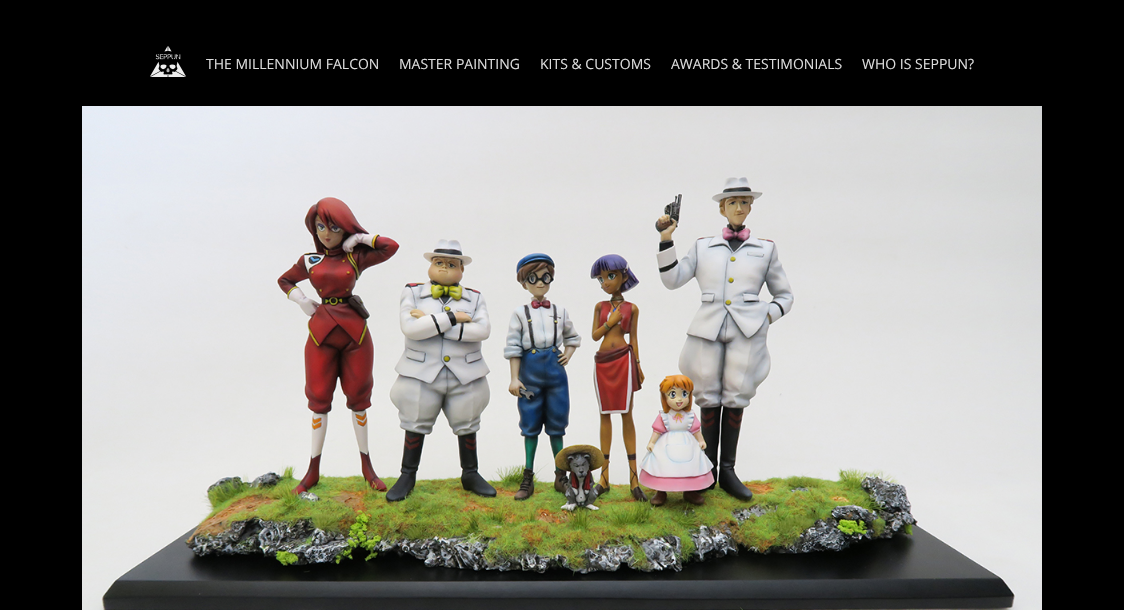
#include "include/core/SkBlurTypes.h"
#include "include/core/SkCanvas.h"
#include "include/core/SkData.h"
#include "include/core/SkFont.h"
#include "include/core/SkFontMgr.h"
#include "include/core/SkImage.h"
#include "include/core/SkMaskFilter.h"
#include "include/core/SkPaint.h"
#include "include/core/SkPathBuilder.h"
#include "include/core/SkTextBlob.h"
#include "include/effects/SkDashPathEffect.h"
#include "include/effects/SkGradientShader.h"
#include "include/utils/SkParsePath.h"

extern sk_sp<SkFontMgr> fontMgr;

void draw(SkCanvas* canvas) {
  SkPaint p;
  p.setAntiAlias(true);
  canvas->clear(SK_ColorBLACK);
  canvas->drawImageRect(SkImages::DeferredFromEncodedData(SkData::MakeFromFileName("images/1.png")), SkRect::MakeLTRB(150, 46, 186, 77), SkSamplingOptions());
  canvas->drawImageRect(SkImages::DeferredFromEncodedData(SkData::MakeFromFileName("images/2.png")), SkRect::MakeLTRB(82, 106, 1042, 610), SkSamplingOptions());
  SkFont font1(fontMgr->matchFamilyStyle("Open Sans", SkFontStyle::Normal()), 14);
  font1.setSubpixel(true);
  p.setColor(SkColorSetRGB(219, 219, 219));
  canvas->drawString("THE MILLENNIUM FALCON", 206, 69, font1, p);
  canvas->drawString("MASTER PAINTING", 399, 69, font1, p);
  canvas->drawString("KITS & CUSTOMS", 540, 69, font1, p);
  canvas->drawString("AWARDS & TESTIMONIALS", 671, 69, font1, p);
  canvas->drawString("WHO IS SEPPUN?", 862, 69, font1, p);
}
